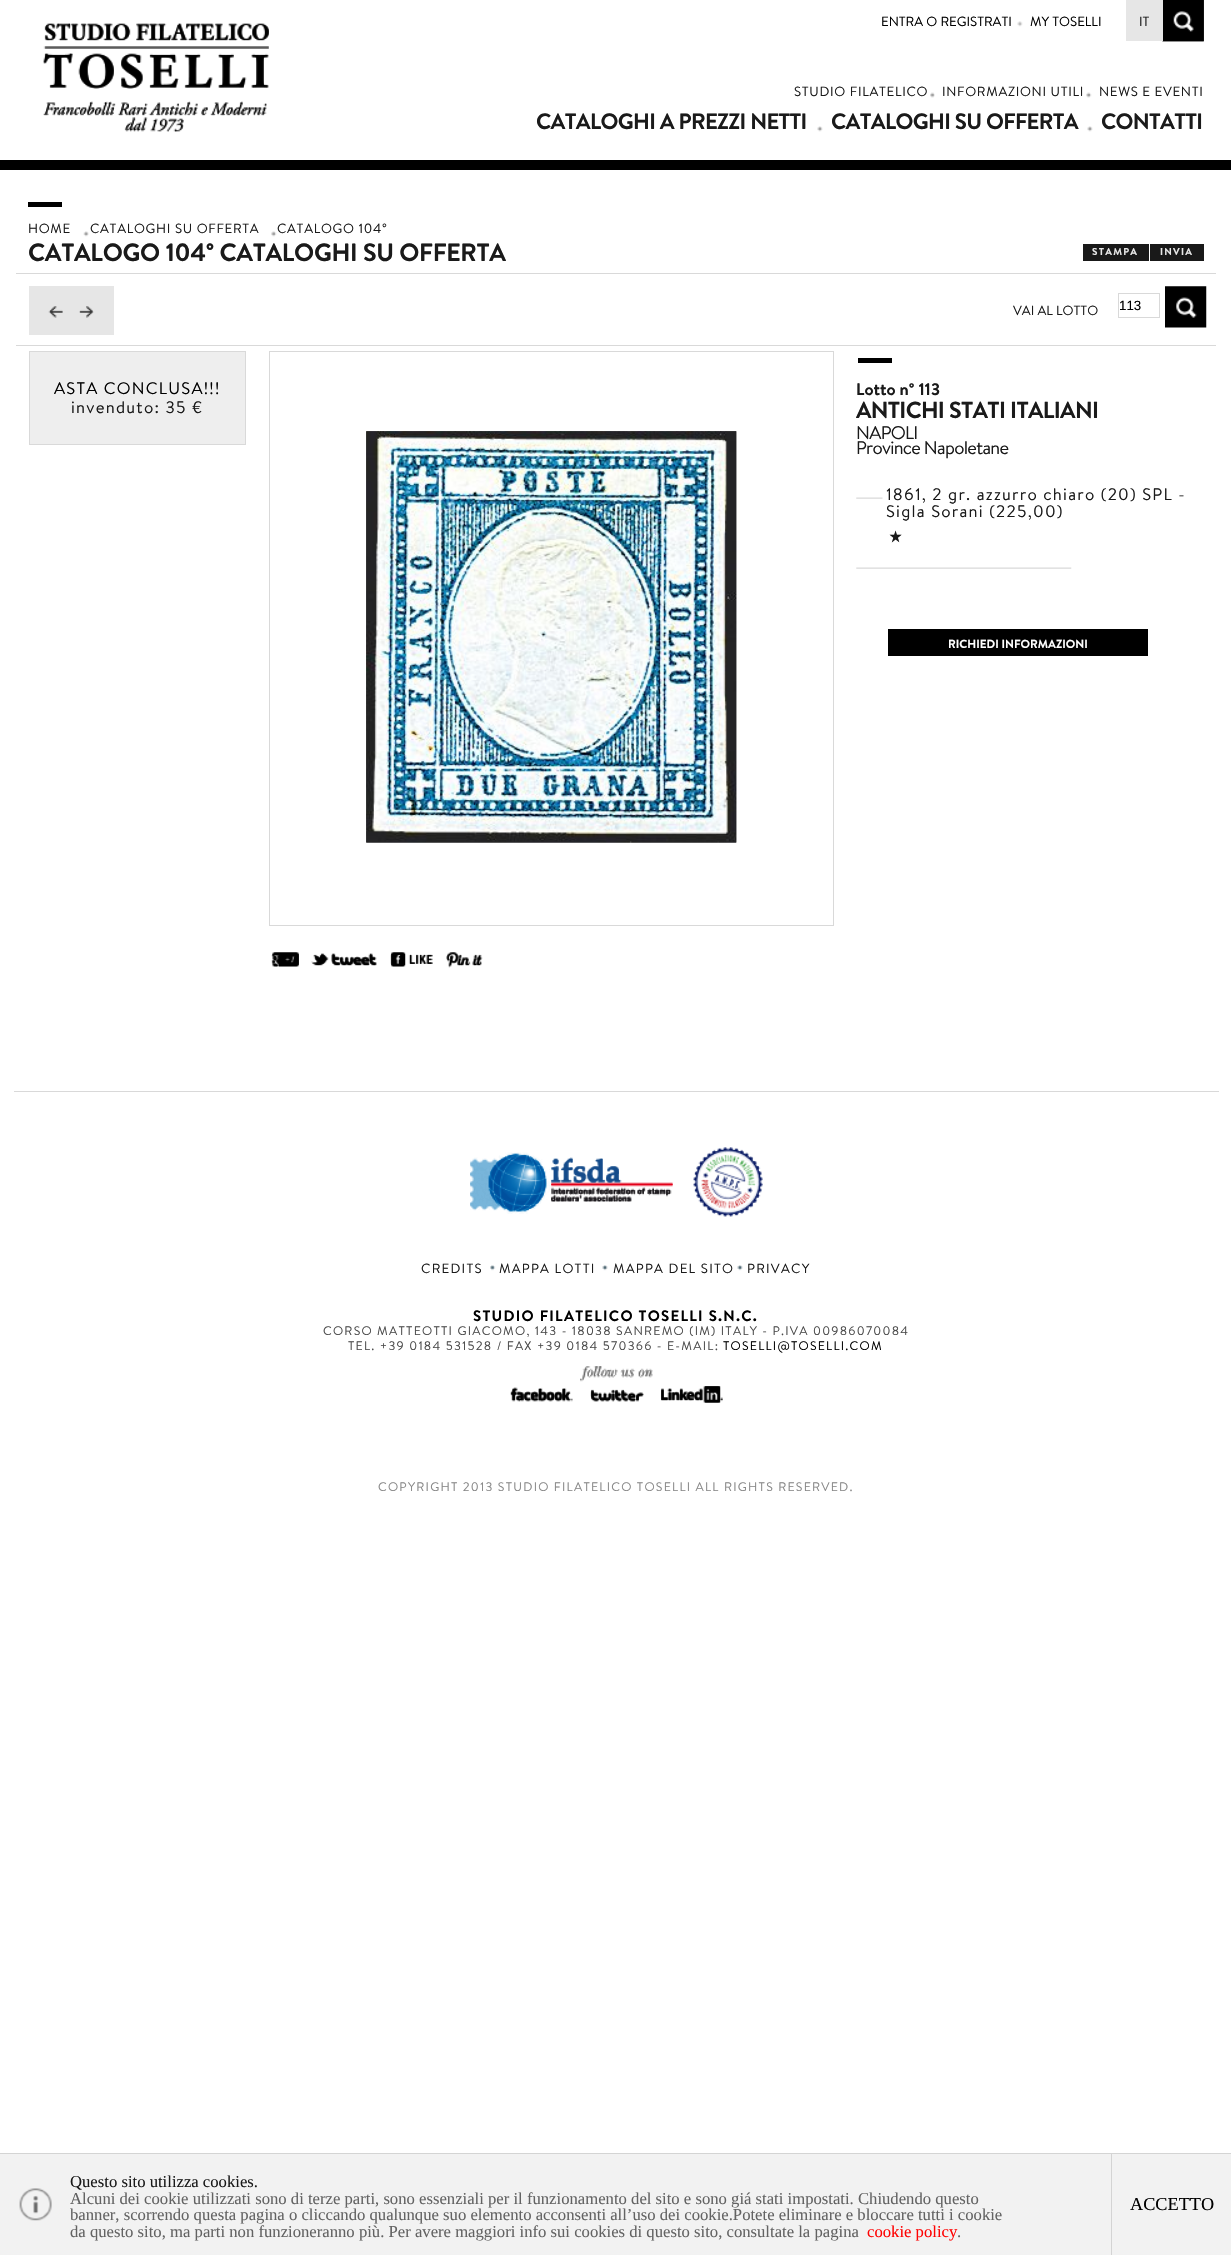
#include "include/core/SkBlurTypes.h"
#include "include/core/SkCanvas.h"
#include "include/core/SkData.h"
#include "include/core/SkFont.h"
#include "include/core/SkFontMgr.h"
#include "include/core/SkImage.h"
#include "include/core/SkMaskFilter.h"
#include "include/core/SkPaint.h"
#include "include/core/SkPathBuilder.h"
#include "include/core/SkTextBlob.h"
#include "include/effects/SkDashPathEffect.h"
#include "include/effects/SkGradientShader.h"
#include "include/utils/SkParsePath.h"

extern sk_sp<SkFontMgr> fontMgr;

void draw(SkCanvas* canvas) {
  SkPaint p;
  p.setAntiAlias(true);
  auto spacedText = [&](const char* s, float x, float y, const SkFont& font, const SkPaint& ink, float letter, float word) {
    std::vector<SkGlyphID> glyphs(font.countText(s, strlen(s), SkTextEncoding::kUTF8));
    std::vector<float> xs(glyphs.size());
    font.textToGlyphs(s, strlen(s), SkTextEncoding::kUTF8, glyphs);
    font.getXPos(glyphs, xs, x);
    float extra = 0;
    for (size_t i = 0; i < glyphs.size(); i++) {
      xs[i] += extra;
      extra += letter + word * (glyphs[i] == font.unicharToGlyph(' '));
    }
    canvas->drawTextBlob(SkTextBlob::MakeFromPosHGlyphs(glyphs, xs, y, font), 0, 0, ink);
  };
  canvas->clear(SK_ColorWHITE);
  p.setColor(SK_ColorBLACK);
  canvas->drawRect(SkRect::MakeLTRB(0, 160, 1231, 170), p);
  canvas->drawImageRect(SkImages::DeferredFromEncodedData(SkData::MakeFromFileName("images/1.png")), SkRect::MakeLTRB(1017, 21, 1023, 27), SkSamplingOptions());
  canvas->drawImageRect(SkImages::DeferredFromEncodedData(SkData::MakeFromFileName("images/2.png")), SkRect::MakeLTRB(1162, 0, 1204, 42), SkSamplingOptions());
  canvas->drawImageRect(SkImages::DeferredFromEncodedData(SkData::MakeFromFileName("images/3.png")), SkRect::MakeLTRB(1162, 0, 1204, 42), SkSamplingOptions());
  p.setColor(SkColorSetRGB(230, 230, 230));
  canvas->drawRect(SkRect::MakeLTRB(1126, 0, 1163, 41), p);
  canvas->drawImageRect(SkImages::DeferredFromEncodedData(SkData::MakeFromFileName("images/4.png")), SkRect::MakeLTRB(43, 23, 269, 132), SkSamplingOptions());
  canvas->drawImageRect(SkImages::DeferredFromEncodedData(SkData::MakeFromFileName("images/5.png")), SkRect::MakeLTRB(43, 23, 269, 132), SkSamplingOptions());
  canvas->drawImageRect(SkImages::DeferredFromEncodedData(SkData::MakeFromFileName("images/6.png")), SkRect::MakeLTRB(930, 92, 935, 98), SkSamplingOptions());
  canvas->drawImageRect(SkImages::DeferredFromEncodedData(SkData::MakeFromFileName("images/7.png")), SkRect::MakeLTRB(1086, 92, 1092, 98), SkSamplingOptions());
  canvas->drawImageRect(SkImages::DeferredFromEncodedData(SkData::MakeFromFileName("images/8.png")), SkRect::MakeLTRB(817, 126, 823, 132), SkSamplingOptions());
  canvas->drawImageRect(SkImages::DeferredFromEncodedData(SkData::MakeFromFileName("images/8.png")), SkRect::MakeLTRB(1087, 126, 1093, 132), SkSamplingOptions());
  p.setColor(SK_ColorBLACK);
  canvas->drawRect(SkRect::MakeLTRB(28, 202, 62, 207), p);
  p.setColor(SkColorSetRGB(217, 217, 217));
  canvas->drawRect(SkRect::MakeLTRB(16, 273, 1216, 274), p);
  canvas->drawImageRect(SkImages::DeferredFromEncodedData(SkData::MakeFromFileName("images/9.png")), SkRect::MakeLTRB(83, 231, 89, 237), SkSamplingOptions());
  canvas->drawImageRect(SkImages::DeferredFromEncodedData(SkData::MakeFromFileName("images/10.png")), SkRect::MakeLTRB(271, 231, 277, 237), SkSamplingOptions());
  p.setColor(SkColorSetRGB(25, 25, 25));
  canvas->drawRect(SkRect::MakeLTRB(1083, 244, 1149, 261), p);
  canvas->drawRect(SkRect::MakeLTRB(1150, 244, 1204, 261), p);
  p.setColor(SkColorSetRGB(217, 217, 217));
  canvas->drawRect(SkRect::MakeLTRB(16, 345, 1216, 346), p);
  p.setColor(SkColorSetRGB(230, 230, 230));
  canvas->drawRect(SkRect::MakeLTRB(29, 286, 114, 335), p);
  canvas->drawImageRect(SkImages::DeferredFromEncodedData(SkData::MakeFromFileName("images/11.png")), SkRect::MakeLTRB(48, 306, 63, 318), SkSamplingOptions());
  canvas->drawImageRect(SkImages::DeferredFromEncodedData(SkData::MakeFromFileName("images/12.png")), SkRect::MakeLTRB(48, 306, 63, 318), SkSamplingOptions());
  p.setStyle(SkPaint::kStroke_Style);
  p.setStrokeWidth(1);
  p.setColor(SkColorSetRGB(217, 217, 217));
  canvas->drawRect(SkRect::MakeLTRB(1118.5f, 293.5f, 1159.5f, 317.5f), p);
  canvas->drawImageRect(SkImages::DeferredFromEncodedData(SkData::MakeFromFileName("images/13.png")), SkRect::MakeLTRB(1165, 286, 1207, 328), SkSamplingOptions());
  canvas->drawImageRect(SkImages::DeferredFromEncodedData(SkData::MakeFromFileName("images/14.png")), SkRect::MakeLTRB(79, 306, 94, 318), SkSamplingOptions());
  canvas->drawImageRect(SkImages::DeferredFromEncodedData(SkData::MakeFromFileName("images/15.png")), SkRect::MakeLTRB(79, 306, 94, 318), SkSamplingOptions());
  p.setStyle(SkPaint::kFill_Style);
  p.setColor(SkColorSetRGB(238, 238, 238));
  canvas->drawRect(SkRect::MakeLTRB(29.5f, 351.5f, 245.5f, 444.5f), p);
  p.setStyle(SkPaint::kStroke_Style);
  p.setColor(SkColorSetRGB(217, 217, 217));
  canvas->drawRect(SkRect::MakeLTRB(29.5f, 351.5f, 245.5f, 444.5f), p);
  canvas->drawRect(SkRect::MakeLTRB(269.5f, 351.5f, 833.5f, 925.5f), p);
  canvas->drawImageRect(SkImages::DeferredFromEncodedData(SkData::MakeFromFileName("images/16.png")), SkRect::MakeLTRB(366, 431, 737, 843), SkSamplingOptions());
  canvas->drawImageRect(SkImages::DeferredFromEncodedData(SkData::MakeFromFileName("images/17.png")), SkRect::MakeLTRB(366, 431, 737, 843), SkSamplingOptions());
  p.setStyle(SkPaint::kFill_Style);
  p.setColor(SK_ColorBLACK);
  canvas->drawRect(SkRect::MakeLTRB(858, 358, 892, 363), p);
  canvas->drawImageRect(SkImages::DeferredFromEncodedData(SkData::MakeFromFileName("images/18.png")), SkRect::MakeLTRB(856, 497, 883, 499), SkSamplingOptions());
  canvas->drawImageRect(SkImages::DeferredFromEncodedData(SkData::MakeFromFileName("images/19.png")), SkRect::MakeLTRB(856, 567, 1072, 569), SkSamplingOptions());
  canvas->drawRect(SkRect::MakeLTRB(888, 629, 1148, 656), p);
  canvas->drawImageRect(SkImages::DeferredFromEncodedData(SkData::MakeFromFileName("images/20.png")), SkRect::MakeLTRB(271, 952, 299, 967), SkSamplingOptions());
  canvas->drawImageRect(SkImages::DeferredFromEncodedData(SkData::MakeFromFileName("images/21.png")), SkRect::MakeLTRB(271, 952, 299, 967), SkSamplingOptions());
  canvas->drawImageRect(SkImages::DeferredFromEncodedData(SkData::MakeFromFileName("images/22.png")), SkRect::MakeLTRB(311, 953, 377, 966), SkSamplingOptions());
  canvas->drawImageRect(SkImages::DeferredFromEncodedData(SkData::MakeFromFileName("images/23.png")), SkRect::MakeLTRB(311, 953, 377, 966), SkSamplingOptions());
  canvas->drawImageRect(SkImages::DeferredFromEncodedData(SkData::MakeFromFileName("images/24.png")), SkRect::MakeLTRB(390, 952, 433, 967), SkSamplingOptions());
  canvas->drawImageRect(SkImages::DeferredFromEncodedData(SkData::MakeFromFileName("images/25.png")), SkRect::MakeLTRB(390, 952, 433, 967), SkSamplingOptions());
  canvas->drawImageRect(SkImages::DeferredFromEncodedData(SkData::MakeFromFileName("images/26.png")), SkRect::MakeLTRB(446, 952, 483, 968), SkSamplingOptions());
  canvas->drawImageRect(SkImages::DeferredFromEncodedData(SkData::MakeFromFileName("images/27.png")), SkRect::MakeLTRB(446, 952, 483, 968), SkSamplingOptions());
  p.setColor(SkColorSetRGB(217, 217, 217));
  canvas->drawRect(SkRect::MakeLTRB(14, 1091, 1219, 1092), p);
  canvas->drawImageRect(SkImages::DeferredFromEncodedData(SkData::MakeFromFileName("images/28.png")), SkRect::MakeLTRB(470, 1147, 763, 1217), SkSamplingOptions());
  canvas->drawImageRect(SkImages::DeferredFromEncodedData(SkData::MakeFromFileName("images/29.png")), SkRect::MakeLTRB(470, 1147, 763, 1217), SkSamplingOptions());
  canvas->drawImageRect(SkImages::DeferredFromEncodedData(SkData::MakeFromFileName("images/30.png")), SkRect::MakeLTRB(490, 1265, 496, 1271), SkSamplingOptions());
  canvas->drawImageRect(SkImages::DeferredFromEncodedData(SkData::MakeFromFileName("images/31.png")), SkRect::MakeLTRB(602, 1265, 608, 1271), SkSamplingOptions());
  canvas->drawImageRect(SkImages::DeferredFromEncodedData(SkData::MakeFromFileName("images/31.png")), SkRect::MakeLTRB(737, 1265, 743, 1271), SkSamplingOptions());
  canvas->drawImageRect(SkImages::DeferredFromEncodedData(SkData::MakeFromFileName("images/32.png")), SkRect::MakeLTRB(580, 1366, 653, 1382), SkSamplingOptions());
  canvas->drawImageRect(SkImages::DeferredFromEncodedData(SkData::MakeFromFileName("images/33.png")), SkRect::MakeLTRB(580, 1366, 653, 1382), SkSamplingOptions());
  canvas->drawImageRect(SkImages::DeferredFromEncodedData(SkData::MakeFromFileName("images/34.png")), SkRect::MakeLTRB(510, 1387, 573, 1402), SkSamplingOptions());
  canvas->drawImageRect(SkImages::DeferredFromEncodedData(SkData::MakeFromFileName("images/35.png")), SkRect::MakeLTRB(510, 1387, 573, 1402), SkSamplingOptions());
  canvas->drawImageRect(SkImages::DeferredFromEncodedData(SkData::MakeFromFileName("images/36.png")), SkRect::MakeLTRB(590, 1389, 644, 1402), SkSamplingOptions());
  canvas->drawImageRect(SkImages::DeferredFromEncodedData(SkData::MakeFromFileName("images/37.png")), SkRect::MakeLTRB(590, 1389, 644, 1402), SkSamplingOptions());
  canvas->drawImageRect(SkImages::DeferredFromEncodedData(SkData::MakeFromFileName("images/38.png")), SkRect::MakeLTRB(661, 1386, 723, 1403), SkSamplingOptions());
  canvas->drawImageRect(SkImages::DeferredFromEncodedData(SkData::MakeFromFileName("images/39.png")), SkRect::MakeLTRB(661, 1386, 723, 1403), SkSamplingOptions());
  p.setColor(SkColorSetRGB(242, 242, 242));
  canvas->drawRect(SkRect::MakeLTRB(0, 2154, 1231, 2255), p);
  p.setColor(SkColorSetRGB(212, 212, 212));
  canvas->drawRect(SkRect::MakeLTRB(0, 2153, 1231, 2154), p);
  canvas->drawImageRect(SkImages::DeferredFromEncodedData(SkData::MakeFromFileName("images/40.png")), SkRect::MakeLTRB(19, 2188, 52, 2221), SkSamplingOptions());
  canvas->drawRect(SkRect::MakeLTRB(1111, 2154, 1112, 2255), p);
  SkFont font1(fontMgr->matchFamilyStyle("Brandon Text", SkFontStyle::Normal()), 13.3f);
  font1.setSubpixel(true);
  p.setColor(SK_ColorBLACK);
  canvas->drawString("ENTRA O REGISTRATI", 881, 26, font1, p);
  canvas->drawString("MY TOSELLI", 1030, 26, font1, p);
  p.setColor(SkColorSetRGB(26, 26, 26));
  canvas->drawString("IT", 1139, 26, font1, p);
  spacedText("STUDIO FILATELICO", 794, 96, font1, p, 0.7f, 0);
  spacedText("INFORMAZIONI UTILI", 942, 96, font1, p, 0.7f, 0);
  spacedText("NEWS E EVENTI", 1099, 96, font1, p, 0.7f, 0);
  SkFont font2(fontMgr->matchFamilyStyle("Brandon Text", SkFontStyle::Bold()), 22.25f);
  font2.setSubpixel(true);
  spacedText("CATALOGHI A PREZZI NETTI", 536, 129, font2, p, -0.7f, 0);
  spacedText("CATALOGHI SU OFFERTA", 831, 129, font2, p, -0.7f, 0);
  spacedText("CONTATTI", 1101, 129, font2, p, -0.7f, 0);
  spacedText("HOME", 28, 233, font1, p, 0.7f, 0);
  spacedText("CATALOGHI SU OFFERTA", 90, 233, font1, p, 0.7f, 0);
  spacedText("CATALOGO 104°", 277, 233, font1, p, 0.7f, 0);
  SkFont font3(fontMgr->matchFamilyStyle("Brandon Text", SkFontStyle::Bold()), 25);
  font3.setSubpixel(true);
  spacedText("CATALOGO 104° CATALOGHI SU OFFERTA", 28, 261, font3, p, -0.35f, 0);
  SkFont font4(fontMgr->matchFamilyStyle("Brandon Text", SkFontStyle::Bold()), 10);
  font4.setSubpixel(true);
  p.setColor(SkColorSetRGB(232, 232, 232));
  spacedText("STAMPA", 1092, 255, font4, p, 1.25f, 0);
  spacedText("INVIA", 1160, 255, font4, p, 1.25f, 0);
  p.setColor(SkColorSetRGB(26, 26, 26));
  canvas->drawString("VAI AL LOTTO", 1013, 315, font1, p);
  SkFont font5(fontMgr->matchFamilyStyle("Liberation Sans", SkFontStyle::Normal()), 13.3f);
  font5.setSubpixel(true);
  p.setColor(SK_ColorBLACK);
  canvas->drawString("113", 1119, 310, font5, p);
  SkFont font6(fontMgr->matchFamilyStyle("Brandon Text", SkFontStyle::Normal()), 16.67f);
  font6.setSubpixel(true);
  spacedText("ASTA CONCLUSA!!!", 54, 394, font6, p, 1.25f, 0);
  p.setColor(SkColorSetRGB(26, 26, 26));
  spacedText("invenduto: 35 €", 71, 413, font6, p, 1.25f, 0);
  SkFont font7(fontMgr->matchFamilyStyle("Brandon Text", SkFontStyle::Bold()), 16.67f);
  font7.setSubpixel(true);
  canvas->drawString("Lotto n° 113", 856, 395, font7, p);
  SkFont font8(fontMgr->matchFamilyStyle("Brandon Text", SkFontStyle::Bold()), 23.25f);
  font8.setSubpixel(true);
  spacedText("ANTICHI STATI ITALIANI", 856, 418, font8, p, -0.7f, 0);
  SkFont font9(fontMgr->matchFamilyStyle("Brandon Text", SkFontStyle::Normal()), 18.25f);
  font9.setSubpixel(true);
  spacedText("NAPOLI", 856, 439, font9, p, -0.7f, 0);
  spacedText("Province Napoletane", 856, 454, font9, p, -0.7f, 0);
  spacedText("1861, 2 gr. azzurro chiaro (20) SPL -", 886, 500, font6, p, 1.25f, 0);
  spacedText("Sigla Sorani (225,00)", 886, 517, font6, p, 1.25f, 0);
  SkFont font10(fontMgr->matchFamilyStyle("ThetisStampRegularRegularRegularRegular", SkFontStyle::Normal()), 22);
  font10.setSubpixel(true);
  canvas->drawString("1", 886, 544, font10, p);
  SkFont font11(fontMgr->matchFamilyStyle("Brandon Text", SkFontStyle::Bold()), 11.75f);
  font11.setSubpixel(true);
  p.setColor(SK_ColorWHITE);
  canvas->drawString("RICHIEDI INFORMAZIONI", 948, 648, font11, p);
  p.setColor(SkColorSetRGB(26, 26, 26));
  spacedText("CREDITS", 421, 1273, font1, p, 1.25f, 0);
  spacedText("MAPPA LOTTI", 499, 1273, font1, p, 1.25f, 0);
  spacedText("MAPPA DEL SITO", 613, 1273, font1, p, 1.25f, 0);
  spacedText("PRIVACY", 747, 1273, font1, p, 1.25f, 0);
  SkFont font12(fontMgr->matchFamilyStyle("Brandon Text", SkFontStyle::Bold()), 15);
  font12.setSubpixel(true);
  p.setColor(SK_ColorBLACK);
  spacedText("STUDIO FILATELICO TOSELLI S.N.C.", 473, 1321, font12, p, 1.25f, 0);
  SkFont font13(fontMgr->matchFamilyStyle("Brandon Text", SkFontStyle::Normal()), 12.35f);
  font13.setSubpixel(true);
  p.setColor(SkColorSetRGB(76, 76, 76));
  spacedText("CORSO MATTEOTTI GIACOMO, 143 - 18038 SANREMO (IM) ITALY - P.IVA 00986070084", 323, 1335, font13, p, 1.25f, 0);
  spacedText("TEL. +39 0184 531528 / FAX +39 0184 570366 - E-MAIL:", 348, 1350, font13, p, 1.25f, 0);
  p.setColor(SK_ColorBLACK);
  spacedText("TOSELLI@TOSELLI.COM", 723, 1350, font13, p, 1.25f, 0);
  p.setColor(SkColorSetRGB(136, 136, 136));
  spacedText("COPYRIGHT 2013 STUDIO FILATELICO TOSELLI ALL RIGHTS RESERVED.", 378, 1491, font13, p, 1.25f, 0);
  SkFont font14(fontMgr->matchFamilyStyle("Liberation Serif", SkFontStyle::Normal()), 16.67f);
  font14.setSubpixel(true);
  p.setColor(SkColorSetRGB(26, 26, 26));
  canvas->drawString("Questo sito utilizza cookies.", 70, 2187, font14, p);
  p.setColor(SkColorSetRGB(99, 99, 99));
  canvas->drawString("Alcuni dei cookie utilizzati sono di terze parti, sono essenziali per il funzionamento del sito e sono giá stati impostati. Chiudendo questo", 70, 2204, font14, p);
  canvas->drawString("banner, scorrendo questa pagina o cliccando qualunque suo elemento acconsenti all’uso dei cookie.Potete eliminare e bloccare tutti i cookie", 70, 2220, font14, p);
  canvas->drawString("da questo sito, ma parti non funzioneranno più. Per avere maggiori info sui cookies di questo sito, consultate la pagina", 70, 2237, font14, p);
  p.setColor(SkColorSetRGB(255, 3, 3));
  canvas->drawString("cookie policy", 867, 2237, font14, p);
  p.setColor(SkColorSetRGB(99, 99, 99));
  canvas->drawString(".", 957, 2237, font14, p);
  SkFont font15(fontMgr->matchFamilyStyle("Liberation Serif", SkFontStyle::Normal()), 18.25f);
  font15.setSubpixel(true);
  p.setColor(SK_ColorBLACK);
  canvas->drawString("ACCETTO", 1130, 2210, font15, p);
}
